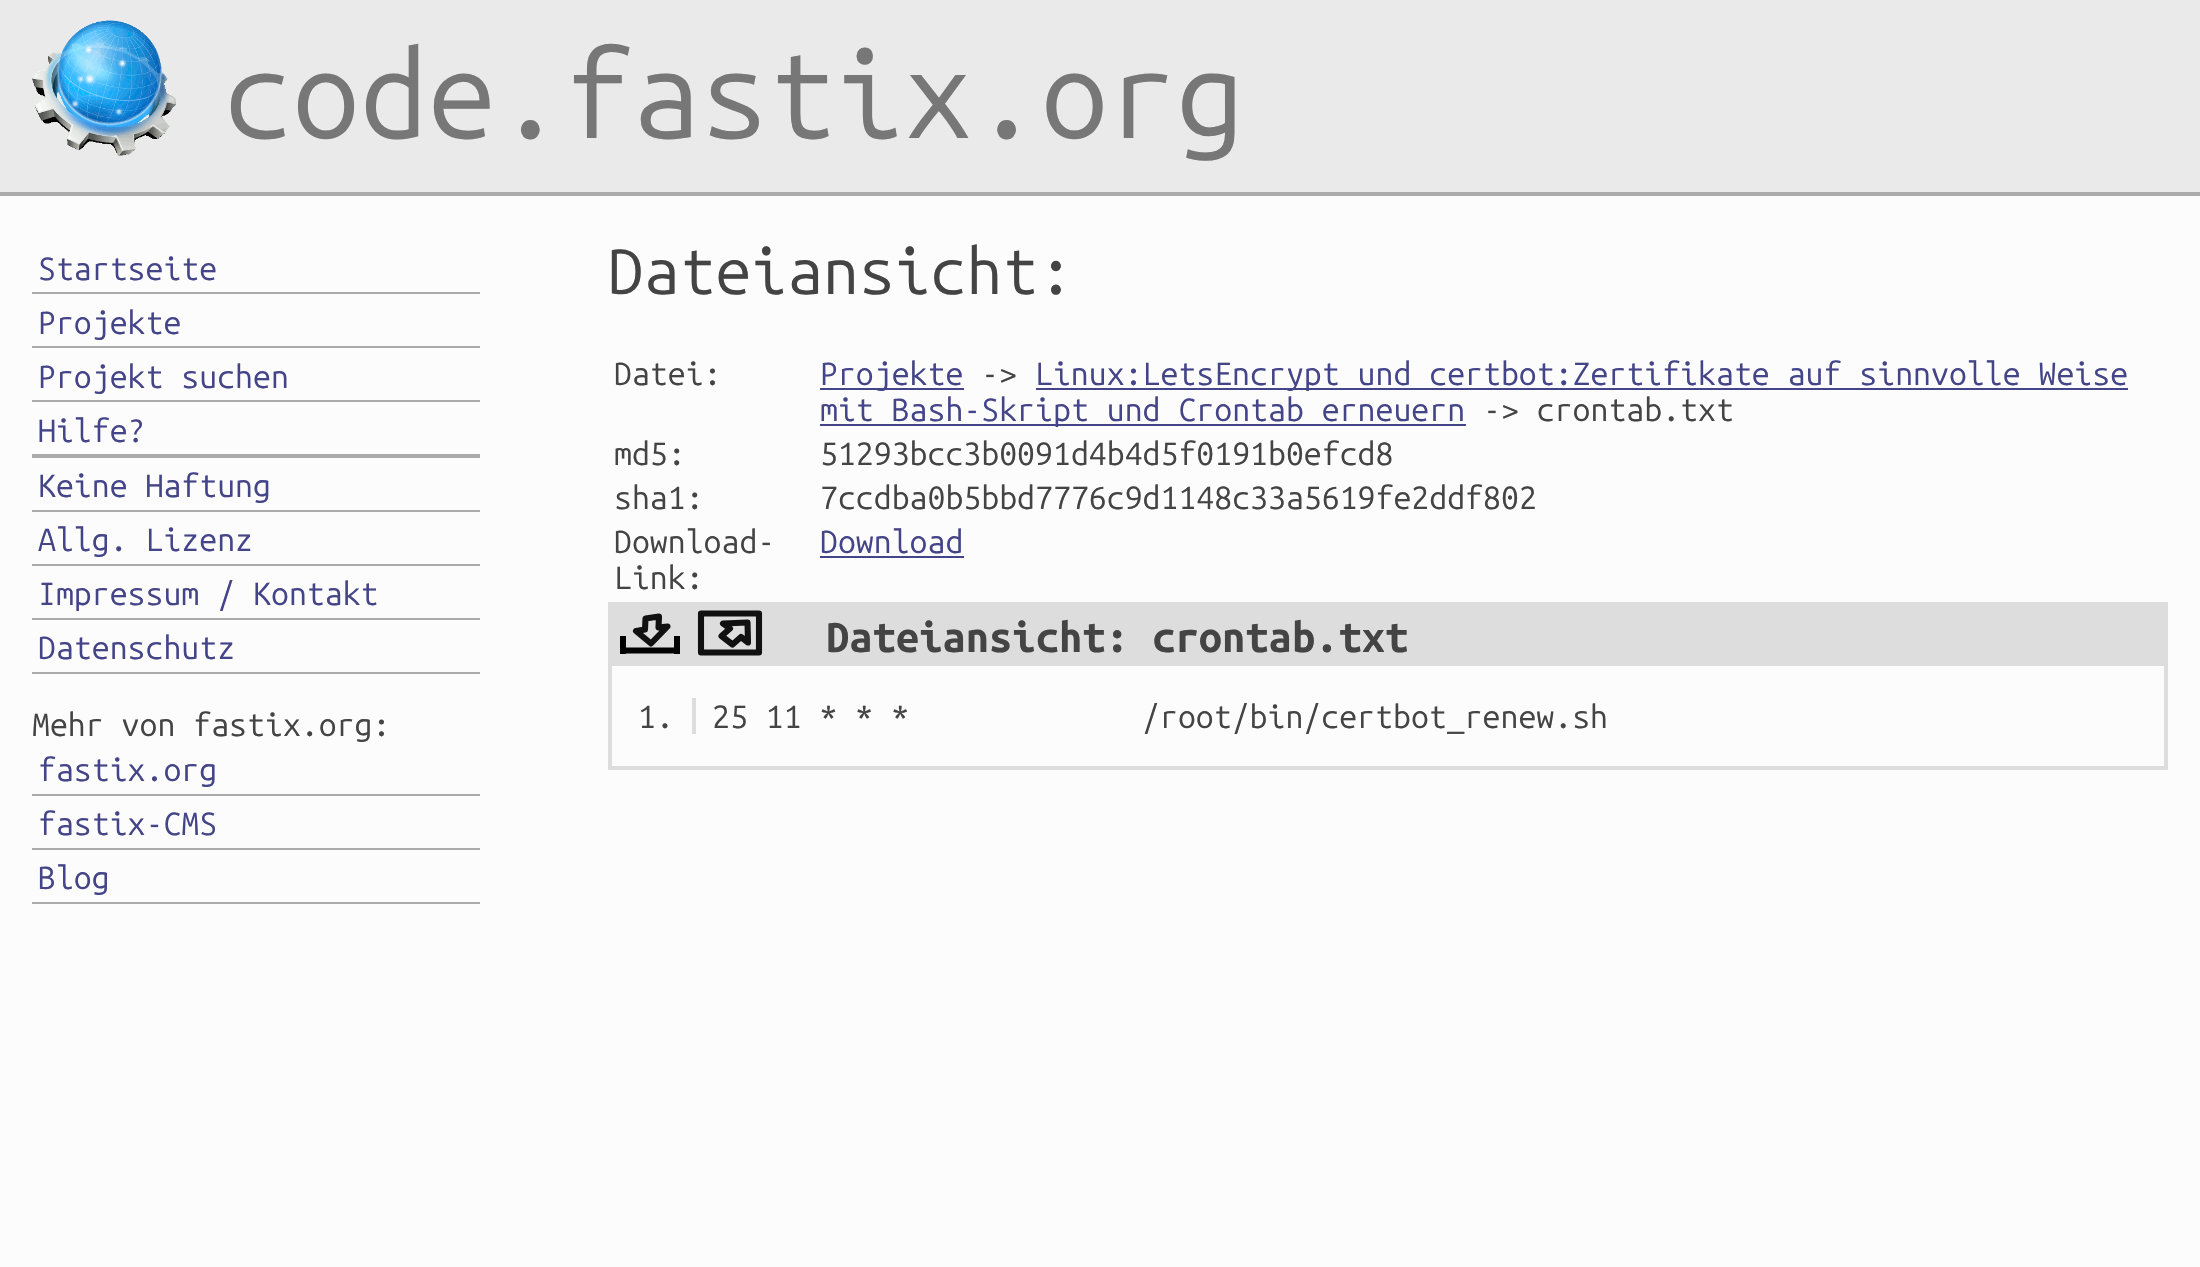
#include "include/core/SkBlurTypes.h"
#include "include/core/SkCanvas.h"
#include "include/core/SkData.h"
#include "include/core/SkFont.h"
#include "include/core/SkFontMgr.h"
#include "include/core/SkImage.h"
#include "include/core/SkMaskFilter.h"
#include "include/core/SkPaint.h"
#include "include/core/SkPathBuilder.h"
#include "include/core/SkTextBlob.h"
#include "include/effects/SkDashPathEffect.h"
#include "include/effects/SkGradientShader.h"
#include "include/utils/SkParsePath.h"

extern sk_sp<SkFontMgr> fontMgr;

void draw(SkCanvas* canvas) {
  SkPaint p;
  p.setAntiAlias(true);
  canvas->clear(SkColorSetRGB(252, 252, 252));
  p.setColor(SkColorSetRGB(234, 234, 234));
  canvas->drawRect(SkRect::MakeLTRB(0, 0, 2200, 192), p);
  canvas->drawImageRect(SkImages::DeferredFromEncodedData(SkData::MakeFromFileName("images/1.png")), SkRect::MakeLTRB(32, 20, 176, 156), SkSamplingOptions());
  p.setColor(SkColorSetRGB(170, 170, 170));
  canvas->drawRect(SkRect::MakeLTRB(0, 192, 2200, 196), p);
  canvas->drawRect(SkRect::MakeLTRB(32, 292, 480, 294), p);
  canvas->drawRect(SkRect::MakeLTRB(32, 346, 480, 348), p);
  canvas->drawRect(SkRect::MakeLTRB(32, 400, 480, 402), p);
  canvas->drawRect(SkRect::MakeLTRB(32, 454, 480, 458), p);
  canvas->drawRect(SkRect::MakeLTRB(32, 510, 480, 512), p);
  canvas->drawRect(SkRect::MakeLTRB(32, 564, 480, 566), p);
  canvas->drawRect(SkRect::MakeLTRB(32, 618, 480, 620), p);
  canvas->drawRect(SkRect::MakeLTRB(32, 672, 480, 674), p);
  canvas->drawRect(SkRect::MakeLTRB(32, 794, 480, 796), p);
  canvas->drawRect(SkRect::MakeLTRB(32, 848, 480, 850), p);
  canvas->drawRect(SkRect::MakeLTRB(32, 902, 480, 904), p);
  p.setColor(SkColorSetRGB(68, 68, 136));
  canvas->drawRect(SkRect::MakeLTRB(820, 388, 964, 390), p);
  canvas->drawRect(SkRect::MakeLTRB(1036, 388, 2128, 390), p);
  canvas->drawRect(SkRect::MakeLTRB(820, 424, 1466, 426), p);
  canvas->drawRect(SkRect::MakeLTRB(820, 556, 964, 558), p);
  p.setColor(SkColorSetRGB(221, 221, 221));
  canvas->drawRect(SkRect::MakeLTRB(608, 602, 2168, 662), p);
  p.setStyle(SkPaint::kStroke_Style);
  p.setStrokeWidth(6.1f);
  p.setStrokeJoin(SkPaint::kRound_Join);
  p.setColor(SkColorSetRGB(17, 17, 17));
  canvas->drawPath(SkPathBuilder().moveTo(659, 616.5f).lineTo(658.5f, 627.5f).lineTo(667.5f, 626.5f).lineTo(651, 643.5f).lineTo(636, 631).lineTo(645, 629.5f).lineTo(645.5f, 618.5f).close().detach(), p);
  p.setStyle(SkPaint::kFill_Style);
  p.setColor(SK_ColorBLACK);
  canvas->drawRect(SkRect::MakeLTRB(620, 636, 626, 654), p);
  canvas->drawRect(SkRect::MakeLTRB(674, 636, 680, 654), p);
  p.setStyle(SkPaint::kStroke_Style);
  canvas->drawPath(SkPathBuilder().moveTo(680, 650.5f).lineTo(620, 650.5f).detach(), p);
  p.setColor(SkColorSetRGB(17, 17, 17));
  canvas->drawPath(SkPathBuilder().moveTo(730, 652.5f).lineTo(701, 652.5f).lineTo(701, 613.5f).lineTo(759, 613.5f).lineTo(759, 652.5f).close().detach(), p);
  canvas->drawPath(SkPathBuilder().moveTo(721.5f, 636).lineTo(730, 628.5f).lineTo(723, 623.5f).lineTo(747.5f, 622.5f).lineTo(748, 642.5f).lineTo(741, 637).lineTo(732.5f, 644.5f).close().detach(), p);
  p.setStrokeWidth(4);
  p.setStrokeJoin(SkPaint::kMiter_Join);
  p.setColor(SkColorSetRGB(221, 221, 221));
  canvas->drawRect(SkRect::MakeLTRB(610, 664, 2166, 768), p);
  p.setStyle(SkPaint::kFill_Style);
  canvas->drawRect(SkRect::MakeLTRB(692, 698, 696, 734), p);
  SkFont font1(fontMgr->matchFamilyStyle("Ubuntu Mono", SkFontStyle::Normal()), 121.5f);
  font1.setSubpixel(true);
  p.setColor(SkColorSetRGB(119, 119, 119));
  canvas->drawString("code.fastix.org", 224, 138, font1, p);
  SkFont font2(fontMgr->matchFamilyStyle("Ubuntu Mono", SkFontStyle::Normal()), 32);
  font2.setSubpixel(true);
  p.setColor(SkColorSetRGB(68, 68, 136));
  canvas->drawString("Startseite", 38, 280, font2, p);
  canvas->drawString("Projekte", 38, 334, font2, p);
  canvas->drawString("Projekt suchen", 38, 388, font2, p);
  canvas->drawString("Hilfe?", 38, 442, font2, p);
  canvas->drawString("Keine Haftung", 38, 497, font2, p);
  canvas->drawString("Allg. Lizenz", 38, 551, font2, p);
  canvas->drawString("Impressum / Kontakt", 38, 605, font2, p);
  canvas->drawString("Datenschutz", 38, 659, font2, p);
  p.setColor(SkColorSetRGB(68, 68, 68));
  canvas->drawString("Mehr von fastix.org:", 32, 736, font2, p);
  p.setColor(SkColorSetRGB(68, 68, 136));
  canvas->drawString("fastix.org", 38, 781, font2, p);
  canvas->drawString("fastix-CMS", 38, 835, font2, p);
  canvas->drawString("Blog", 38, 889, font2, p);
  SkFont font3(fontMgr->matchFamilyStyle("Ubuntu Mono", SkFontStyle::Normal()), 64);
  font3.setSubpixel(true);
  p.setColor(SkColorSetRGB(68, 68, 68));
  canvas->drawString("Dateiansicht:", 608, 294, font3, p);
  canvas->drawString("Datei:", 614, 385, font2, p);
  p.setColor(SkColorSetRGB(68, 68, 136));
  canvas->drawString("Projekte", 820, 385, font2, p);
  p.setColor(SkColorSetRGB(68, 68, 68));
  canvas->drawString("->", 981, 385, font2, p);
  p.setColor(SkColorSetRGB(68, 68, 136));
  canvas->drawString("Linux:LetsEncrypt und certbot:Zertifikate auf sinnvolle Weise", 1035, 385, font2, p);
  canvas->drawString("mit Bash-Skript und Crontab erneuern", 820, 421, font2, p);
  p.setColor(SkColorSetRGB(68, 68, 68));
  canvas->drawString("-> crontab.txt", 1483, 421, font2, p);
  canvas->drawString("md5:", 614, 465, font2, p);
  canvas->drawString("51293bcc3b0091d4b4d5f0191b0efcd8", 820, 465, font2, p);
  canvas->drawString("sha1:", 614, 509, font2, p);
  canvas->drawString("7ccdba0b5bbd7776c9d1148c33a5619fe2ddf802", 820, 509, font2, p);
  canvas->drawString("Download-", 614, 553, font2, p);
  canvas->drawString("Link:", 614, 589, font2, p);
  p.setColor(SkColorSetRGB(68, 68, 136));
  canvas->drawString("Download", 820, 553, font2, p);
  SkFont font4(fontMgr->matchFamilyStyle("Ubuntu Mono", SkFontStyle::Bold()), 41.6f);
  font4.setSubpixel(true);
  p.setColor(SkColorSetRGB(68, 68, 68));
  canvas->drawString("Dateiansicht: crontab.txt", 826, 652, font4, p);
  canvas->drawString("1.", 638, 728, font2, p);
  canvas->drawString("25 11 * * *             /root/bin/certbot_renew.sh", 712, 728, font2, p);
}
